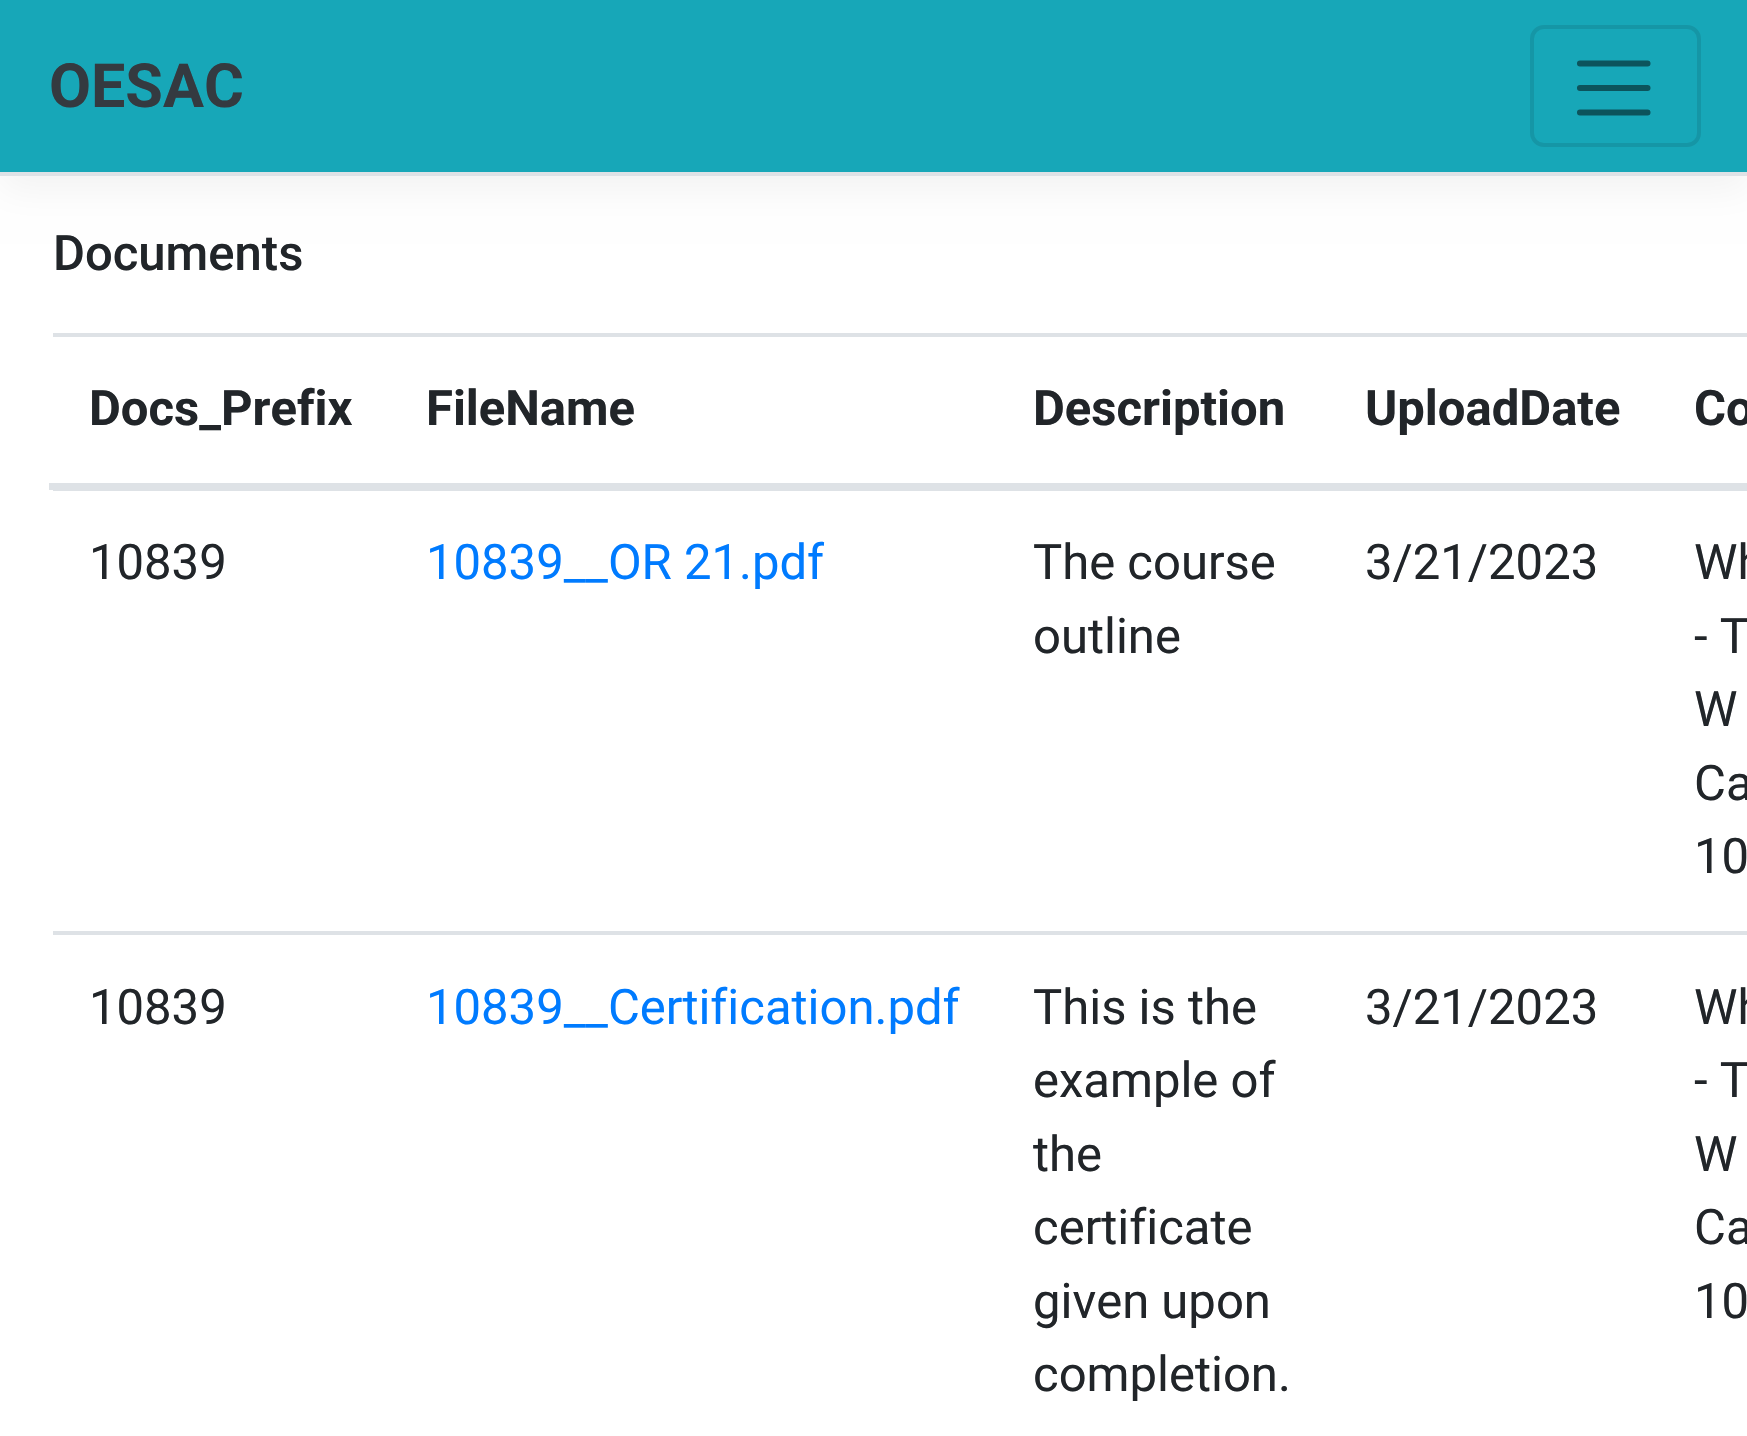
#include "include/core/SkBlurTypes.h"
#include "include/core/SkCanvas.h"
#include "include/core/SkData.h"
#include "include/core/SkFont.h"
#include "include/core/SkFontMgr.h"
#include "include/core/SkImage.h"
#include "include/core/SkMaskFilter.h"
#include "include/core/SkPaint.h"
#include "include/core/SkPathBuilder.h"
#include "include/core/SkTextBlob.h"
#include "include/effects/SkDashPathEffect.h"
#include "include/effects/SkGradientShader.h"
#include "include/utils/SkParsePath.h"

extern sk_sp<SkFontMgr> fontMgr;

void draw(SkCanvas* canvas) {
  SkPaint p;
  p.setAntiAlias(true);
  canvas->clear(SK_ColorWHITE);
  p.setColor(SkColorSetARGB(13, 0, 0, 0));
  p.setMaskFilter(SkMaskFilter::MakeBlur(kNormal_SkBlurStyle, 18.5f));
  canvas->drawRect(SkRect::MakeLTRB(0, 14, 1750, 189), p);
  p.setMaskFilter(nullptr);
  p.setColor(SkColorSetRGB(23, 167, 184));
  canvas->drawRect(SkRect::MakeLTRB(0, 0, 1747, 172), p);
  p.setColor(SkColorSetRGB(222, 226, 230));
  canvas->drawRect(SkRect::MakeLTRB(0, 172, 1747, 176), p);
  p.setStyle(SkPaint::kStroke_Style);
  p.setStrokeWidth(4);
  p.setColor(SkColorSetRGB(21, 150, 166));
  canvas->drawRoundRect(SkRect::MakeLTRB(1532, 27, 1699, 145), 12, 12, p);
  p.setStrokeWidth(6.1f);
  p.setStrokeCap(SkPaint::kRound_Cap);
  p.setColor(SkColorSetRGB(12, 84, 92));
  canvas->drawPath(SkPathBuilder().moveTo(1580, 63.5f).lineTo(1647.5f, 63.5f).moveTo(1580, 88).lineTo(1647.5f, 88).moveTo(1580, 112.5f).lineTo(1647.5f, 112.5f).detach(), p);
  p.setStyle(SkPaint::kFill_Style);
  p.setColor(SkColorSetRGB(222, 226, 230));
  canvas->drawRect(SkRect::MakeLTRB(53, 333, 1747, 337), p);
  canvas->drawRect(SkRect::MakeLTRB(49, 483, 1747, 490), p);
  canvas->drawRect(SkRect::MakeLTRB(53, 490, 1747, 491), p);
  canvas->drawRect(SkRect::MakeLTRB(53, 931, 1747, 935), p);
  SkFont font1(fontMgr->matchFamilyStyle("Roboto", SkFontStyle::Bold()), 61);
  font1.setSubpixel(true);
  p.setColor(SkColorSetRGB(52, 58, 64));
  canvas->drawString("OESAC", 49, 107, font1, p);
  SkFont font2(fontMgr->matchFamilyStyle("Roboto", SkFontStyle(500, SkFontStyle::kNormal_Width, SkFontStyle::kUpright_Slant)), 49);
  font2.setSubpixel(true);
  p.setColor(SkColorSetRGB(33, 37, 41));
  canvas->drawString("Documents", 53, 270, font2, p);
  SkFont font3(fontMgr->matchFamilyStyle("Roboto", SkFontStyle::Bold()), 49);
  font3.setSubpixel(true);
  canvas->drawString("Docs_Prefix", 89, 425, font3, p);
  canvas->drawString("FileName", 426, 425, font3, p);
  canvas->drawString("Description", 1033, 425, font3, p);
  canvas->drawString("UploadDate", 1365, 425, font3, p);
  canvas->drawString("Co", 1694, 425, font3, p);
  SkFont font4(fontMgr->matchFamilyStyle("Roboto", SkFontStyle::Normal()), 49);
  font4.setSubpixel(true);
  canvas->drawString("10839", 89, 579, font4, p);
  p.setColor(SkColorSetRGB(0, 123, 255));
  canvas->drawString("10839__OR 21.pdf", 426, 579, font4, p);
  p.setColor(SkColorSetRGB(33, 37, 41));
  canvas->drawString("The course", 1033, 579, font4, p);
  canvas->drawString("outline", 1033, 653, font4, p);
  canvas->drawString("3/21/2023", 1365, 579, font4, p);
  canvas->drawString("Wh", 1694, 579, font4, p);
  canvas->drawString("- T", 1694, 653, font4, p);
  canvas->drawString("W", 1694, 726, font4, p);
  canvas->drawString("Ca", 1694, 800, font4, p);
  canvas->drawString("10", 1694, 873, font4, p);
  canvas->drawString("10839", 89, 1024, font4, p);
  p.setColor(SkColorSetRGB(0, 123, 255));
  canvas->drawString("10839__Certification.pdf", 426, 1024, font4, p);
  p.setColor(SkColorSetRGB(33, 37, 41));
  canvas->drawString("This is the", 1033, 1024, font4, p);
  canvas->drawString("example of", 1033, 1097, font4, p);
  canvas->drawString("the", 1033, 1171, font4, p);
  canvas->drawString("certificate", 1033, 1244, font4, p);
  canvas->drawString("given upon", 1033, 1318, font4, p);
  canvas->drawString("completion.", 1033, 1391, font4, p);
  canvas->drawString("3/21/2023", 1365, 1024, font4, p);
  canvas->drawString("Wh", 1694, 1024, font4, p);
  canvas->drawString("- T", 1694, 1097, font4, p);
  canvas->drawString("W", 1694, 1171, font4, p);
  canvas->drawString("Ca", 1694, 1244, font4, p);
  canvas->drawString("10", 1694, 1318, font4, p);
}
